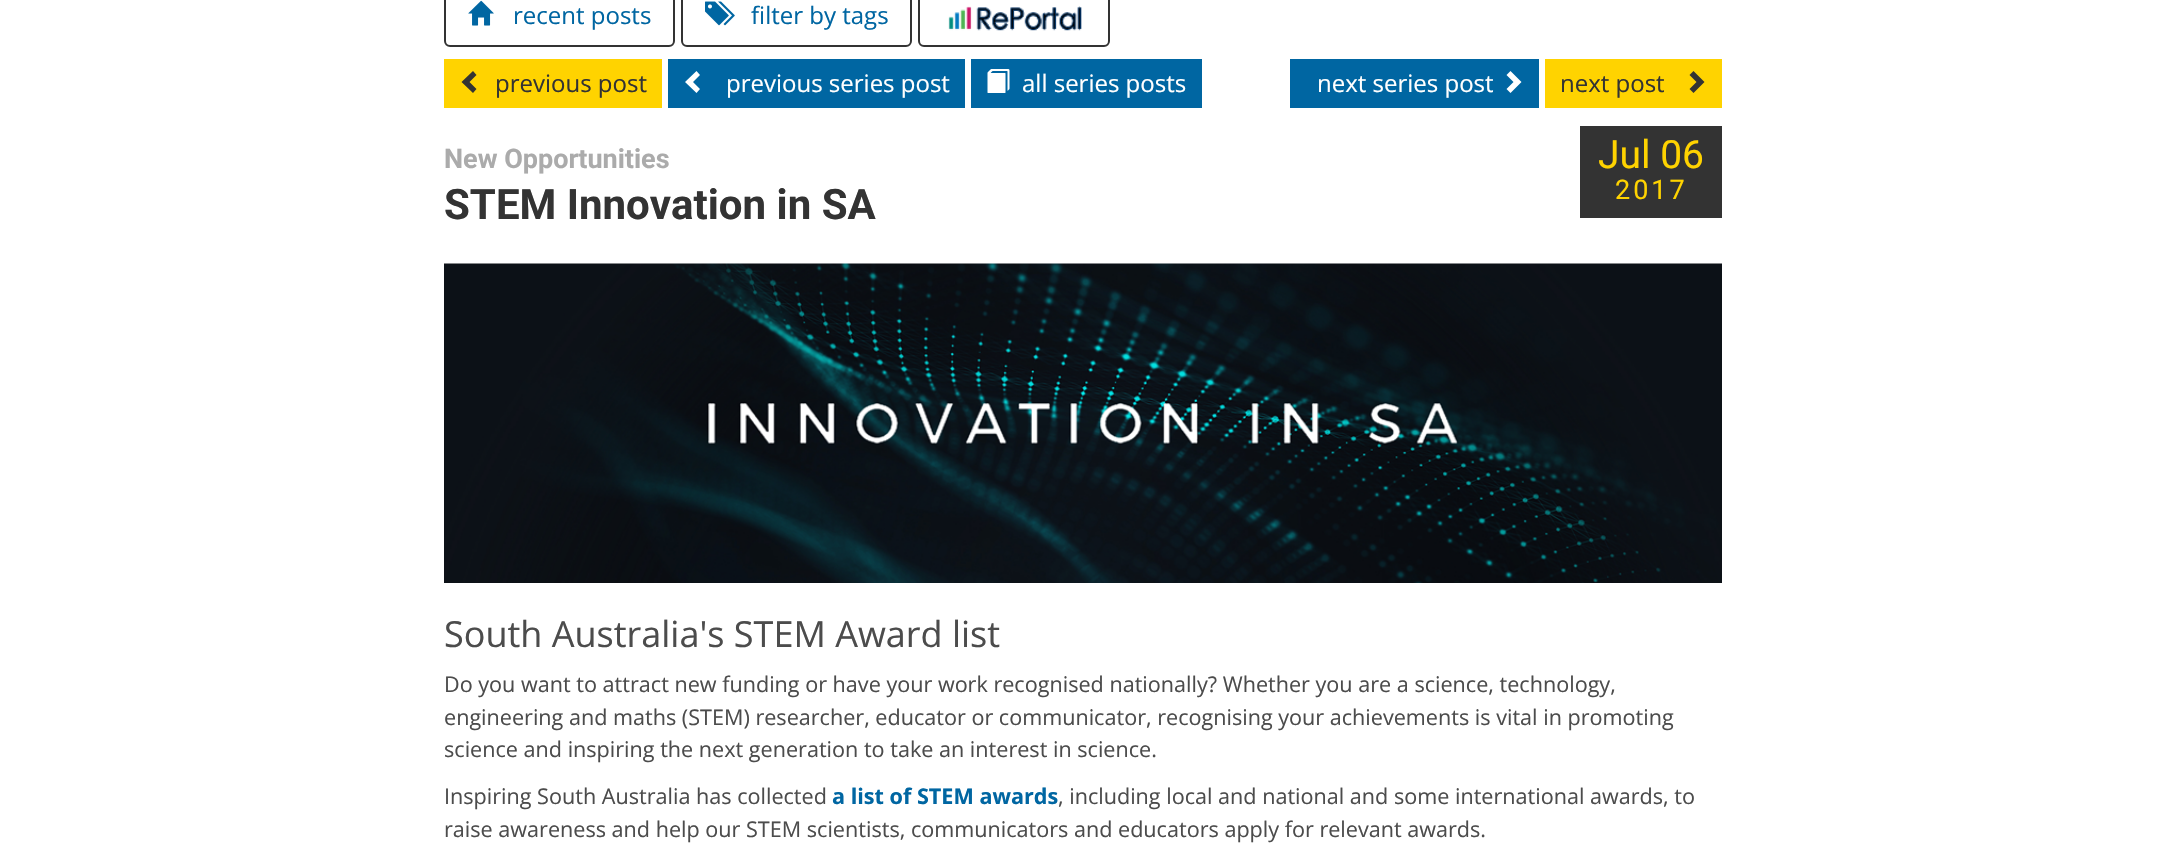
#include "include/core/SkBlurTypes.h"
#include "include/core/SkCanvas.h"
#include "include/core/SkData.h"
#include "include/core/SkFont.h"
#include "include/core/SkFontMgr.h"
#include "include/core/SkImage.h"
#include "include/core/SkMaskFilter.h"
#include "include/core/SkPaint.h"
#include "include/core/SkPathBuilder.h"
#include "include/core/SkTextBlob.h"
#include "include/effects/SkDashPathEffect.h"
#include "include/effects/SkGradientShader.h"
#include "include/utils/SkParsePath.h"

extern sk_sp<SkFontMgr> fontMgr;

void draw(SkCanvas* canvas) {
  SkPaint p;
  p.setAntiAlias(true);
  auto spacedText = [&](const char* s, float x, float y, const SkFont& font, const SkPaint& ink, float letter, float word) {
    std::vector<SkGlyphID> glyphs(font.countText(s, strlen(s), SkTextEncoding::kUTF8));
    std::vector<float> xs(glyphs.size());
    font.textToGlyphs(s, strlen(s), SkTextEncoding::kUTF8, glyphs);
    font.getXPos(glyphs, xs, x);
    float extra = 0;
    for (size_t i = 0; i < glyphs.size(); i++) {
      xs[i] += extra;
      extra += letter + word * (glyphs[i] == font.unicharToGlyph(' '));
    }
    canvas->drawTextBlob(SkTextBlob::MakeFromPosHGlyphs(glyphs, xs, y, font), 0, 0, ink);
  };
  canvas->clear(SK_ColorWHITE);
  p.setStyle(SkPaint::kStroke_Style);
  p.setStrokeWidth(2);
  p.setColor(SkColorSetRGB(51, 51, 51));
  canvas->drawRoundRect(SkRect::MakeLTRB(445, -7, 674, 46), 5, 5, p);
  canvas->drawImageRect(SkImages::DeferredFromEncodedData(SkData::MakeFromFileName("images/1.png")), SkRect::MakeLTRB(468, 0, 494, 26), SkSamplingOptions());
  canvas->drawRoundRect(SkRect::MakeLTRB(682, -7, 911, 46), 5, 5, p);
  canvas->drawImageRect(SkImages::DeferredFromEncodedData(SkData::MakeFromFileName("images/2.png")), SkRect::MakeLTRB(705, 1, 735, 26), SkSamplingOptions());
  canvas->drawRoundRect(SkRect::MakeLTRB(919, -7, 1109, 46), 5, 5, p);
  canvas->drawImageRect(SkImages::DeferredFromEncodedData(SkData::MakeFromFileName("images/3.png")), SkRect::MakeLTRB(948, 6, 1082, 31), SkSamplingOptions());
  p.setStyle(SkPaint::kFill_Style);
  p.setColor(SkColorSetRGB(255, 211, 0));
  canvas->drawRect(SkRect::MakeLTRB(444, 59, 662, 108), p);
  p.setColor(SkColorSetRGB(51, 51, 51));
  canvas->drawPath(SkPathBuilder().moveTo(476.5f, 75).lineTo(469.5f, 82).lineTo(476.5f, 89).lineTo(473, 93).lineTo(461.5f, 82).lineTo(473, 71).close().detach(), p);
  p.setColor(SkColorSetRGB(0, 102, 162));
  canvas->drawRect(SkRect::MakeLTRB(668, 59, 965, 108), p);
  p.setColor(SK_ColorWHITE);
  canvas->drawPath(SkPathBuilder().moveTo(700, 75).lineTo(693, 82).lineTo(700, 89).lineTo(696.5f, 93).lineTo(685, 82).lineTo(696.5f, 71).close().detach(), p);
  p.setColor(SkColorSetRGB(0, 102, 162));
  canvas->drawRect(SkRect::MakeLTRB(971, 59, 1202, 108), p);
  canvas->drawImageRect(SkImages::DeferredFromEncodedData(SkData::MakeFromFileName("images/4.png")), SkRect::MakeLTRB(987, 69, 1010, 93), SkSamplingOptions());
  canvas->drawRect(SkRect::MakeLTRB(1290, 59, 1539, 108), p);
  p.setColor(SK_ColorWHITE);
  canvas->drawPath(SkPathBuilder().moveTo(1521.5f, 82).lineTo(1510.5f, 93).lineTo(1506.5f, 89).lineTo(1513.5f, 82).lineTo(1506.5f, 75).lineTo(1510.5f, 71).close().detach(), p);
  p.setColor(SkColorSetRGB(255, 211, 0));
  canvas->drawRect(SkRect::MakeLTRB(1545, 59, 1722, 108), p);
  p.setColor(SkColorSetRGB(51, 51, 51));
  canvas->drawPath(SkPathBuilder().moveTo(1704.5f, 82).lineTo(1693.5f, 93).lineTo(1689.5f, 89).lineTo(1696.5f, 82).lineTo(1689.5f, 75).lineTo(1693.5f, 71).close().detach(), p);
  canvas->drawRect(SkRect::MakeLTRB(1580, 126, 1722, 218), p);
  canvas->drawImageRect(SkImages::DeferredFromEncodedData(SkData::MakeFromFileName("images/5.png")), SkRect::MakeLTRB(444, 263, 1722, 583), SkSamplingOptions());
  SkFont font1(fontMgr->matchFamilyStyle("Open Sans", SkFontStyle::Normal()), 24);
  font1.setSubpixel(true);
  p.setColor(SkColorSetRGB(0, 102, 162));
  canvas->drawString("recent posts", 513, 24, font1, p);
  canvas->drawString("filter by tags", 751, 24, font1, p);
  p.setColor(SkColorSetRGB(51, 51, 51));
  canvas->drawString("previous post", 495, 92, font1, p);
  p.setColor(SK_ColorWHITE);
  canvas->drawString("previous series post", 726, 92, font1, p);
  canvas->drawString("all series posts", 1022, 92, font1, p);
  canvas->drawString("next series post", 1317, 92, font1, p);
  p.setColor(SkColorSetRGB(51, 51, 51));
  canvas->drawString("next post", 1560, 92, font1, p);
  SkFont font2(fontMgr->matchFamilyStyle("Roboto", SkFontStyle::Bold()), 27);
  font2.setSubpixel(true);
  p.setColor(SkColorSetRGB(171, 171, 171));
  canvas->drawString("New Opportunities", 444, 168, font2, p);
  SkFont font3(fontMgr->matchFamilyStyle("Roboto", SkFontStyle::Bold()), 42);
  font3.setSubpixel(true);
  p.setColor(SkColorSetRGB(51, 51, 51));
  canvas->drawString("STEM Innovation in SA", 444, 219, font3, p);
  SkFont font4(fontMgr->matchFamilyStyle("Roboto", SkFontStyle::Normal()), 39);
  font4.setSubpixel(true);
  p.setColor(SkColorSetRGB(255, 211, 0));
  canvas->drawString("Jul 06", 1598, 168, font4, p);
  SkFont font5(fontMgr->matchFamilyStyle("Roboto", SkFontStyle::Normal()), 27);
  font5.setSubpixel(true);
  spacedText("2017", 1615, 199, font5, p, 3, 0);
  SkFont font6(fontMgr->matchFamilyStyle("Open Sans", SkFontStyle::Normal()), 36);
  font6.setSubpixel(true);
  p.setColor(SkColorSetRGB(76, 76, 76));
  canvas->drawString("South Australia's STEM Award list", 444, 647, font6, p);
  SkFont font7(fontMgr->matchFamilyStyle("Open Sans", SkFontStyle::Normal()), 21.6f);
  font7.setSubpixel(true);
  canvas->drawString("Do you want to attract new funding or have your work recognised nationally? Whether you are a science, technology,", 444, 692, font7, p);
  canvas->drawString("engineering and maths (STEM) researcher, educator or communicator, recognising your achievements is vital in promoting", 444, 725, font7, p);
  canvas->drawString("science and inspiring the next generation to take an interest in science.", 444, 757, font7, p);
  canvas->drawString("Inspiring South Australia has collected", 444, 804, font7, p);
  SkFont font8(fontMgr->matchFamilyStyle("Open Sans", SkFontStyle::Bold()), 21.6f);
  font8.setSubpixel(true);
  p.setColor(SkColorSetRGB(0, 102, 162));
  canvas->drawString("a list of STEM awards", 832, 804, font8, p);
  p.setColor(SkColorSetRGB(76, 76, 76));
  canvas->drawString(", including local and national and some international awards, to", 1058, 804, font7, p);
  canvas->drawString("raise awareness and help our STEM scientists, communicators and educators apply for relevant awards.", 444, 837, font7, p);
}
